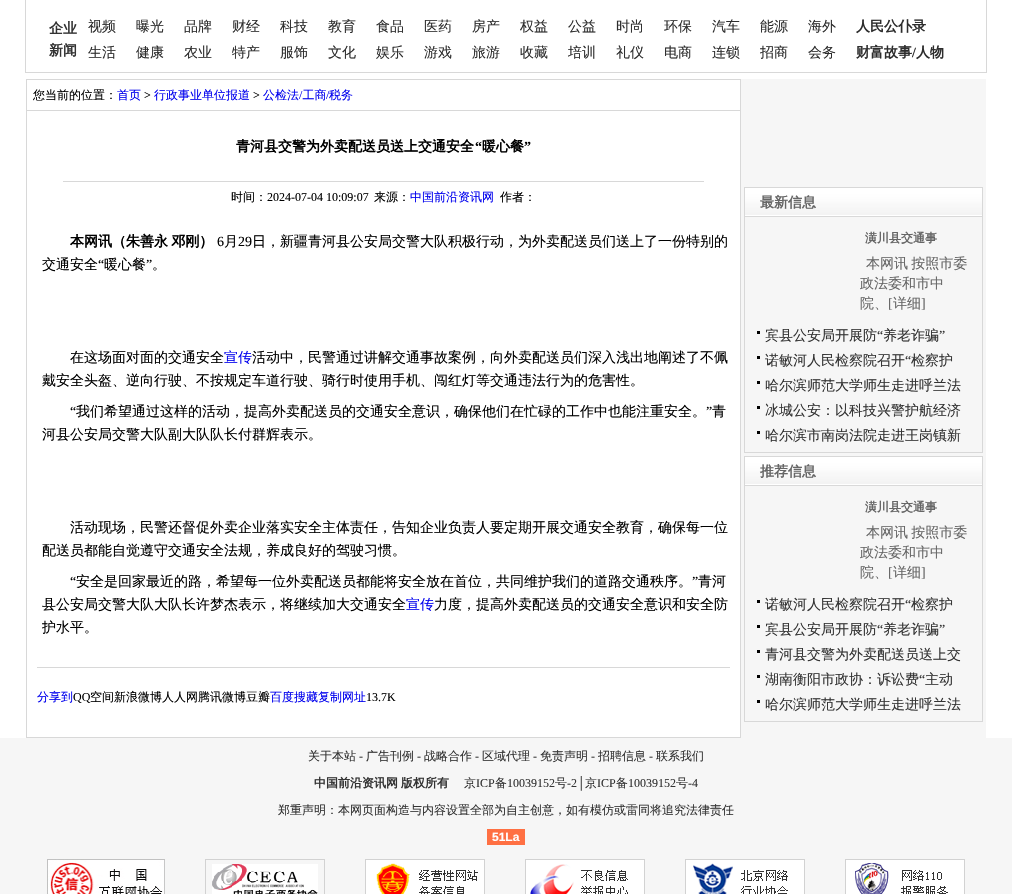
#include "include/core/SkBlurTypes.h"
#include "include/core/SkCanvas.h"
#include "include/core/SkData.h"
#include "include/core/SkFont.h"
#include "include/core/SkFontMgr.h"
#include "include/core/SkImage.h"
#include "include/core/SkMaskFilter.h"
#include "include/core/SkPaint.h"
#include "include/core/SkPathBuilder.h"
#include "include/core/SkTextBlob.h"
#include "include/effects/SkDashPathEffect.h"
#include "include/effects/SkGradientShader.h"
#include "include/utils/SkParsePath.h"

extern sk_sp<SkFontMgr> fontMgr;

void draw(SkCanvas* canvas) {
  SkPaint p;
  p.setAntiAlias(true);
  auto spacedText = [&](const char* s, float x, float y, const SkFont& font, const SkPaint& ink, float letter, float word) {
    std::vector<SkGlyphID> glyphs(font.countText(s, strlen(s), SkTextEncoding::kUTF8));
    std::vector<float> xs(glyphs.size());
    font.textToGlyphs(s, strlen(s), SkTextEncoding::kUTF8, glyphs);
    font.getXPos(glyphs, xs, x);
    float extra = 0;
    for (size_t i = 0; i < glyphs.size(); i++) {
      xs[i] += extra;
      extra += letter + word * (glyphs[i] == font.unicharToGlyph(' '));
    }
    canvas->drawTextBlob(SkTextBlob::MakeFromPosHGlyphs(glyphs, xs, y, font), 0, 0, ink);
  };
  canvas->clear(SK_ColorWHITE);
  p.setStyle(SkPaint::kStroke_Style);
  p.setStrokeWidth(1);
  p.setColor(SkColorSetRGB(216, 216, 216));
  canvas->drawRect(SkRect::MakeLTRB(25.5f, -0.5f, 986.5f, 72.5f), p);
  p.setStyle(SkPaint::kFill_Style);
  canvas->drawRect(SkRect::MakeLTRB(740, 79, 741, 738), p);
  canvas->drawRect(SkRect::MakeLTRB(26, 79, 740, 80), p);
  canvas->drawRect(SkRect::MakeLTRB(26, 737, 740, 738), p);
  canvas->drawRect(SkRect::MakeLTRB(26, 79, 27, 738), p);
  canvas->drawRect(SkRect::MakeLTRB(27, 110, 740, 111), p);
  canvas->drawRect(SkRect::MakeLTRB(63, 181, 704, 182), p);
  canvas->drawRect(SkRect::MakeLTRB(37, 667, 730, 668), p);
  p.setColor(SkColorSetRGB(246, 246, 246));
  canvas->drawRect(SkRect::MakeLTRB(741, 79, 986, 738), p);
  p.setStyle(SkPaint::kStroke_Style);
  p.setColor(SkColorSetRGB(216, 216, 216));
  canvas->drawRect(SkRect::MakeLTRB(744.5f, 187.5f, 982.5f, 452.5f), p);
  canvas->drawImageRect(SkImages::DeferredFromEncodedData(SkData::MakeFromFileName("images/1.png")), SkRect::MakeLTRB(745, 188, 982, 217), SkSamplingOptions());
  p.setStyle(SkPaint::kFill_Style);
  p.setColor(SkColorSetRGB(1, 1, 1));
  canvas->drawRect(SkRect::MakeLTRB(757, 331, 760, 334), p);
  canvas->drawRect(SkRect::MakeLTRB(757, 356, 760, 359), p);
  canvas->drawRect(SkRect::MakeLTRB(757, 381, 760, 384), p);
  canvas->drawRect(SkRect::MakeLTRB(757, 406, 760, 409), p);
  canvas->drawRect(SkRect::MakeLTRB(757, 431, 760, 434), p);
  p.setStyle(SkPaint::kStroke_Style);
  p.setColor(SkColorSetRGB(216, 216, 216));
  canvas->drawRect(SkRect::MakeLTRB(744.5f, 456.5f, 982.5f, 721.5f), p);
  canvas->drawImageRect(SkImages::DeferredFromEncodedData(SkData::MakeFromFileName("images/1.png")), SkRect::MakeLTRB(745, 457, 982, 486), SkSamplingOptions());
  p.setStyle(SkPaint::kFill_Style);
  p.setColor(SkColorSetRGB(1, 1, 1));
  canvas->drawRect(SkRect::MakeLTRB(757, 600, 760, 603), p);
  canvas->drawRect(SkRect::MakeLTRB(757, 625, 760, 628), p);
  canvas->drawRect(SkRect::MakeLTRB(757, 650, 760, 653), p);
  canvas->drawRect(SkRect::MakeLTRB(757, 675, 760, 678), p);
  canvas->drawRect(SkRect::MakeLTRB(757, 700, 760, 703), p);
  p.setColor(SkColorSetRGB(246, 246, 246));
  canvas->drawRect(SkRect::MakeLTRB(0, 738, 1012, 894), p);
  p.setColor(SkColorSetRGB(255, 112, 67));
  canvas->drawRect(SkRect::MakeLTRB(487, 829, 525, 845), p);
  canvas->drawImageRect(SkImages::DeferredFromEncodedData(SkData::MakeFromFileName("images/2.png")), SkRect::MakeLTRB(47, 859, 165, 894), SkSamplingOptions());
  canvas->drawImageRect(SkImages::DeferredFromEncodedData(SkData::MakeFromFileName("images/3.png")), SkRect::MakeLTRB(205, 859, 325, 894), SkSamplingOptions());
  canvas->drawImageRect(SkImages::DeferredFromEncodedData(SkData::MakeFromFileName("images/4.png")), SkRect::MakeLTRB(365, 859, 485, 894), SkSamplingOptions());
  canvas->drawImageRect(SkImages::DeferredFromEncodedData(SkData::MakeFromFileName("images/5.png")), SkRect::MakeLTRB(525, 859, 645, 894), SkSamplingOptions());
  canvas->drawImageRect(SkImages::DeferredFromEncodedData(SkData::MakeFromFileName("images/6.png")), SkRect::MakeLTRB(685, 859, 805, 894), SkSamplingOptions());
  canvas->drawImageRect(SkImages::DeferredFromEncodedData(SkData::MakeFromFileName("images/7.png")), SkRect::MakeLTRB(845, 859, 965, 894), SkSamplingOptions());
  SkFont font1(fontMgr->matchFamilyStyle("WenQuanYi Zen Hei", SkFontStyle::Bold()), 14);
  font1.setSubpixel(true);
  p.setColor(SkColorSetRGB(51, 51, 51));
  canvas->drawString("企业", 49, 33, font1, p);
  canvas->drawString("新闻", 49, 55, font1, p);
  SkFont font2(fontMgr->matchFamilyStyle("WenQuanYi Zen Hei", SkFontStyle(500, SkFontStyle::kNormal_Width, SkFontStyle::kUpright_Slant)), 14);
  font2.setSubpixel(true);
  p.setColor(SkColorSetRGB(45, 45, 45));
  canvas->drawString("视频", 88, 31, font2, p);
  canvas->drawString("曝光", 136, 31, font2, p);
  canvas->drawString("品牌", 184, 31, font2, p);
  canvas->drawString("财经", 232, 31, font2, p);
  canvas->drawString("科技", 280, 31, font2, p);
  canvas->drawString("教育", 328, 31, font2, p);
  canvas->drawString("食品", 376, 31, font2, p);
  canvas->drawString("医药", 424, 31, font2, p);
  canvas->drawString("房产", 472, 31, font2, p);
  canvas->drawString("权益", 520, 31, font2, p);
  canvas->drawString("公益", 568, 31, font2, p);
  canvas->drawString("时尚", 616, 31, font2, p);
  canvas->drawString("环保", 664, 31, font2, p);
  canvas->drawString("汽车", 712, 31, font2, p);
  canvas->drawString("能源", 760, 31, font2, p);
  canvas->drawString("海外", 808, 31, font2, p);
  canvas->drawString("人民公仆录", 856, 31, font1, p);
  canvas->drawString("生活", 88, 57, font2, p);
  canvas->drawString("健康", 136, 57, font2, p);
  canvas->drawString("农业", 184, 57, font2, p);
  canvas->drawString("特产", 232, 57, font2, p);
  canvas->drawString("服饰", 280, 57, font2, p);
  canvas->drawString("文化", 328, 57, font2, p);
  canvas->drawString("娱乐", 376, 57, font2, p);
  canvas->drawString("游戏", 424, 57, font2, p);
  canvas->drawString("旅游", 472, 57, font2, p);
  canvas->drawString("收藏", 520, 57, font2, p);
  canvas->drawString("培训", 568, 57, font2, p);
  canvas->drawString("礼仪", 616, 57, font2, p);
  canvas->drawString("电商", 664, 57, font2, p);
  canvas->drawString("连锁", 712, 57, font2, p);
  canvas->drawString("招商", 760, 57, font2, p);
  canvas->drawString("会务", 808, 57, font2, p);
  canvas->drawString("财富故事", 856, 57, font1, p);
  SkFont font3(fontMgr->matchFamilyStyle("Liberation Serif", SkFontStyle::Bold()), 14);
  font3.setSubpixel(true);
  canvas->drawString("/", 912, 57, font3, p);
  canvas->drawString("人物", 916, 57, font1, p);
  SkFont font4(fontMgr->matchFamilyStyle("WenQuanYi Zen Hei", SkFontStyle(500, SkFontStyle::kNormal_Width, SkFontStyle::kUpright_Slant)), 12);
  font4.setSubpixel(true);
  p.setColor(SK_ColorBLACK);
  canvas->drawString("您当前的位置：", 33, 99, font4, p);
  p.setColor(SkColorSetRGB(0, 0, 238));
  canvas->drawString("首页", 117, 99, font4, p);
  canvas->drawString("行政事业单位报道", 154, 99, font4, p);
  canvas->drawString("公检法 工商", 263, 99, font4, p);
  SkFont font5(fontMgr->matchFamilyStyle("Liberation Serif", SkFontStyle::Normal()), 12);
  font5.setSubpixel(true);
  p.setColor(SK_ColorBLACK);
  canvas->drawString(">", 144, 99, font5, p);
  canvas->drawString(">", 253, 99, font5, p);
  p.setColor(SkColorSetRGB(0, 0, 238));
  canvas->drawString("/", 299, 99, font5, p);
  canvas->drawString("/", 326, 99, font5, p);
  canvas->drawString("税务", 329, 99, font4, p);
  p.setColor(SK_ColorBLACK);
  canvas->drawString("青河县交警为外卖配送员送上交通安全", 236, 151, font1, p);
  canvas->drawString("“", 475, 151, font3, p);
  canvas->drawString("暖心餐", 482, 151, font1, p);
  canvas->drawString("”", 524, 151, font3, p);
  canvas->drawString("时间：", 231, 201, font4, p);
  canvas->drawString("2024-07-04 10:09:07", 267, 201, font5, p);
  canvas->drawString("来源：", 374, 201, font4, p);
  p.setColor(SkColorSetRGB(0, 0, 238));
  canvas->drawString("中国前沿资讯网", 410, 201, font4, p);
  p.setColor(SK_ColorBLACK);
  canvas->drawString("作者：", 500, 201, font4, p);
  canvas->drawString("本网讯", 70, 246, font1, p);
  spacedText("（朱善永 邓刚）", 112, 246, font1, p, 0, -1);
  SkFont font6(fontMgr->matchFamilyStyle("Liberation Serif", SkFontStyle::Normal()), 14);
  font6.setSubpixel(true);
  canvas->drawString("6", 217, 246, font6, p);
  canvas->drawString("月", 224, 246, font2, p);
  canvas->drawString("29", 238, 246, font6, p);
  canvas->drawString("日，新疆青河县公安局交警大队积极行动，为外卖配送员们送上了一份特别的", 252, 246, font2, p);
  canvas->drawString("交通安全", 42, 269, font2, p);
  canvas->drawString("“", 98, 269, font6, p);
  canvas->drawString("暖心餐", 104, 269, font2, p);
  canvas->drawString("”", 146, 269, font6, p);
  canvas->drawString("。", 152, 269, font2, p);
  canvas->drawString("在这场面对面的交通安全", 70, 362, font2, p);
  p.setColor(SkColorSetRGB(0, 0, 238));
  canvas->drawString("宣传", 224, 362, font2, p);
  p.setColor(SK_ColorBLACK);
  canvas->drawString("活动中，民警通过讲解交通事故案例，向外卖配送员们深入浅出地阐述了不佩", 252, 362, font2, p);
  canvas->drawString("戴安全头盔、逆向行驶、不按规定车道行驶、骑行时使用手机、闯红灯等交通违法行为的危害性。", 42, 385, font2, p);
  canvas->drawString("“", 70, 416, font6, p);
  canvas->drawString("我们希望通过这样的活动，提高外卖配送员的交通安全意识，确保他们在忙碌的工作中也能注重安全。", 76, 416, font2, p);
  canvas->drawString("”", 706, 416, font6, p);
  canvas->drawString("青", 712, 416, font2, p);
  canvas->drawString("河县公安局交警大队副大队队长付群辉表示。", 42, 439, font2, p);
  canvas->drawString("活动现场，民警还督促外卖企业落实安全主体责任，告知企业负责人要定期开展交通安全教育，确保每一位", 70, 532, font2, p);
  canvas->drawString("配送员都能自觉遵守交通安全法规，养成良好的驾驶习惯。", 42, 555, font2, p);
  canvas->drawString("“", 70, 586, font6, p);
  canvas->drawString("安全是回家最近的路，希望每一位外卖配送员都能将安全放在首位，共同维护我们的道路交通秩序。", 76, 586, font2, p);
  canvas->drawString("”", 692, 586, font6, p);
  canvas->drawString("青河", 698, 586, font2, p);
  canvas->drawString("县公安局交警大队大队长许梦杰表示，将继续加大交通安全", 42, 609, font2, p);
  p.setColor(SkColorSetRGB(0, 0, 238));
  canvas->drawString("宣传", 406, 609, font2, p);
  p.setColor(SK_ColorBLACK);
  canvas->drawString("力度，提高外卖配送员的交通安全意识和安全防", 434, 609, font2, p);
  canvas->drawString("护水平。", 42, 632, font2, p);
  p.setColor(SkColorSetRGB(0, 0, 238));
  canvas->drawString("分享到", 37, 701, font4, p);
  p.setColor(SK_ColorBLACK);
  canvas->drawString("QQ", 73, 701, font5, p);
  canvas->drawString("空间新浪微博人人网腾讯微博豆瓣", 90, 701, font4, p);
  p.setColor(SkColorSetRGB(0, 0, 238));
  canvas->drawString("百度搜藏复制网址", 270, 701, font4, p);
  p.setColor(SK_ColorBLACK);
  canvas->drawString("13.7K", 366, 701, font5, p);
  p.setColor(SkColorSetRGB(102, 102, 102));
  canvas->drawString("最新信息", 760, 207, font1, p);
  SkFont font7(fontMgr->matchFamilyStyle("WenQuanYi Zen Hei", SkFontStyle::Bold()), 12);
  font7.setSubpixel(true);
  canvas->drawString("潢川县交通事", 865, 242, font7, p);
  spacedText("本网讯 按照市委", 866, 268, font2, p, 0, -1);
  canvas->drawString("政法委和市中", 860, 288, font2, p);
  canvas->drawString("院、", 860, 308, font2, p);
  canvas->drawString("[", 888, 308, font6, p);
  canvas->drawString("详细", 893, 308, font2, p);
  canvas->drawString("]", 921, 308, font6, p);
  p.setColor(SkColorSetRGB(51, 51, 51));
  canvas->drawString("宾县公安局开展防", 765, 340, font2, p);
  canvas->drawString("“", 877, 340, font6, p);
  canvas->drawString("养老诈骗", 883, 340, font2, p);
  canvas->drawString("”", 939, 340, font6, p);
  canvas->drawString("诺敏河人民检察院召开", 765, 365, font2, p);
  canvas->drawString("“", 905, 365, font6, p);
  canvas->drawString("检察护", 911, 365, font2, p);
  canvas->drawString("哈尔滨师范大学师生走进呼兰法", 765, 390, font2, p);
  canvas->drawString("冰城公安：以科技兴警护航经济", 765, 415, font2, p);
  canvas->drawString("哈尔滨市南岗法院走进王岗镇新", 765, 440, font2, p);
  p.setColor(SkColorSetRGB(102, 102, 102));
  canvas->drawString("推荐信息", 760, 476, font1, p);
  canvas->drawString("潢川县交通事", 865, 511, font7, p);
  spacedText("本网讯 按照市委", 866, 537, font2, p, 0, -1);
  canvas->drawString("政法委和市中", 860, 557, font2, p);
  canvas->drawString("院、", 860, 577, font2, p);
  canvas->drawString("[", 888, 577, font6, p);
  canvas->drawString("详细", 893, 577, font2, p);
  canvas->drawString("]", 921, 577, font6, p);
  p.setColor(SkColorSetRGB(51, 51, 51));
  canvas->drawString("诺敏河人民检察院召开", 765, 609, font2, p);
  canvas->drawString("“", 905, 609, font6, p);
  canvas->drawString("检察护", 911, 609, font2, p);
  canvas->drawString("宾县公安局开展防", 765, 634, font2, p);
  canvas->drawString("“", 877, 634, font6, p);
  canvas->drawString("养老诈骗", 883, 634, font2, p);
  canvas->drawString("”", 939, 634, font6, p);
  canvas->drawString("青河县交警为外卖配送员送上交", 765, 659, font2, p);
  canvas->drawString("湖南衡阳市政协：诉讼费", 765, 684, font2, p);
  canvas->drawString("“", 919, 684, font6, p);
  canvas->drawString("主动", 925, 684, font2, p);
  canvas->drawString("哈尔滨师范大学师生走进呼兰法", 765, 709, font2, p);
  canvas->drawString("关于本站", 308, 760, font4, p);
  canvas->drawString("-", 359, 760, font5, p);
  canvas->drawString("广告刊例", 366, 760, font4, p);
  canvas->drawString("-", 417, 760, font5, p);
  canvas->drawString("战略合作", 424, 760, font4, p);
  canvas->drawString("-", 475, 760, font5, p);
  canvas->drawString("区域代理", 482, 760, font4, p);
  canvas->drawString("-", 533, 760, font5, p);
  canvas->drawString("免责声明", 540, 760, font4, p);
  canvas->drawString("-", 591, 760, font5, p);
  canvas->drawString("招聘信息", 598, 760, font4, p);
  canvas->drawString("-", 649, 760, font5, p);
  canvas->drawString("联系我们", 656, 760, font4, p);
  canvas->drawString("中国前沿资讯网", 314, 787, font7, p);
  canvas->drawString("版权所有", 401, 787, font7, p);
  canvas->drawString("京", 464, 787, font4, p);
  canvas->drawString("ICP", 476, 787, font5, p);
  canvas->drawString("备", 495, 787, font4, p);
  canvas->drawString("10039152", 507, 787, font5, p);
  canvas->drawString("号", 555, 787, font4, p);
  canvas->drawString("-2│", 567, 787, font5, p);
  canvas->drawString("京", 585, 787, font4, p);
  canvas->drawString("ICP", 597, 787, font5, p);
  canvas->drawString("备", 616, 787, font4, p);
  canvas->drawString("10039152", 628, 787, font5, p);
  canvas->drawString("号", 676, 787, font4, p);
  canvas->drawString("-4", 688, 787, font5, p);
  canvas->drawString("郑重声明：本网页面构造与内容设置全部为自主创意，如有模仿或雷同将追究法律责任", 278, 814, font4, p);
  SkFont font8(fontMgr->matchFamilyStyle("Liberation Sans", SkFontStyle::Bold()), 12);
  font8.setSubpixel(true);
  p.setColor(SK_ColorWHITE);
  canvas->drawString("51La", 492, 841, font8, p);
}
